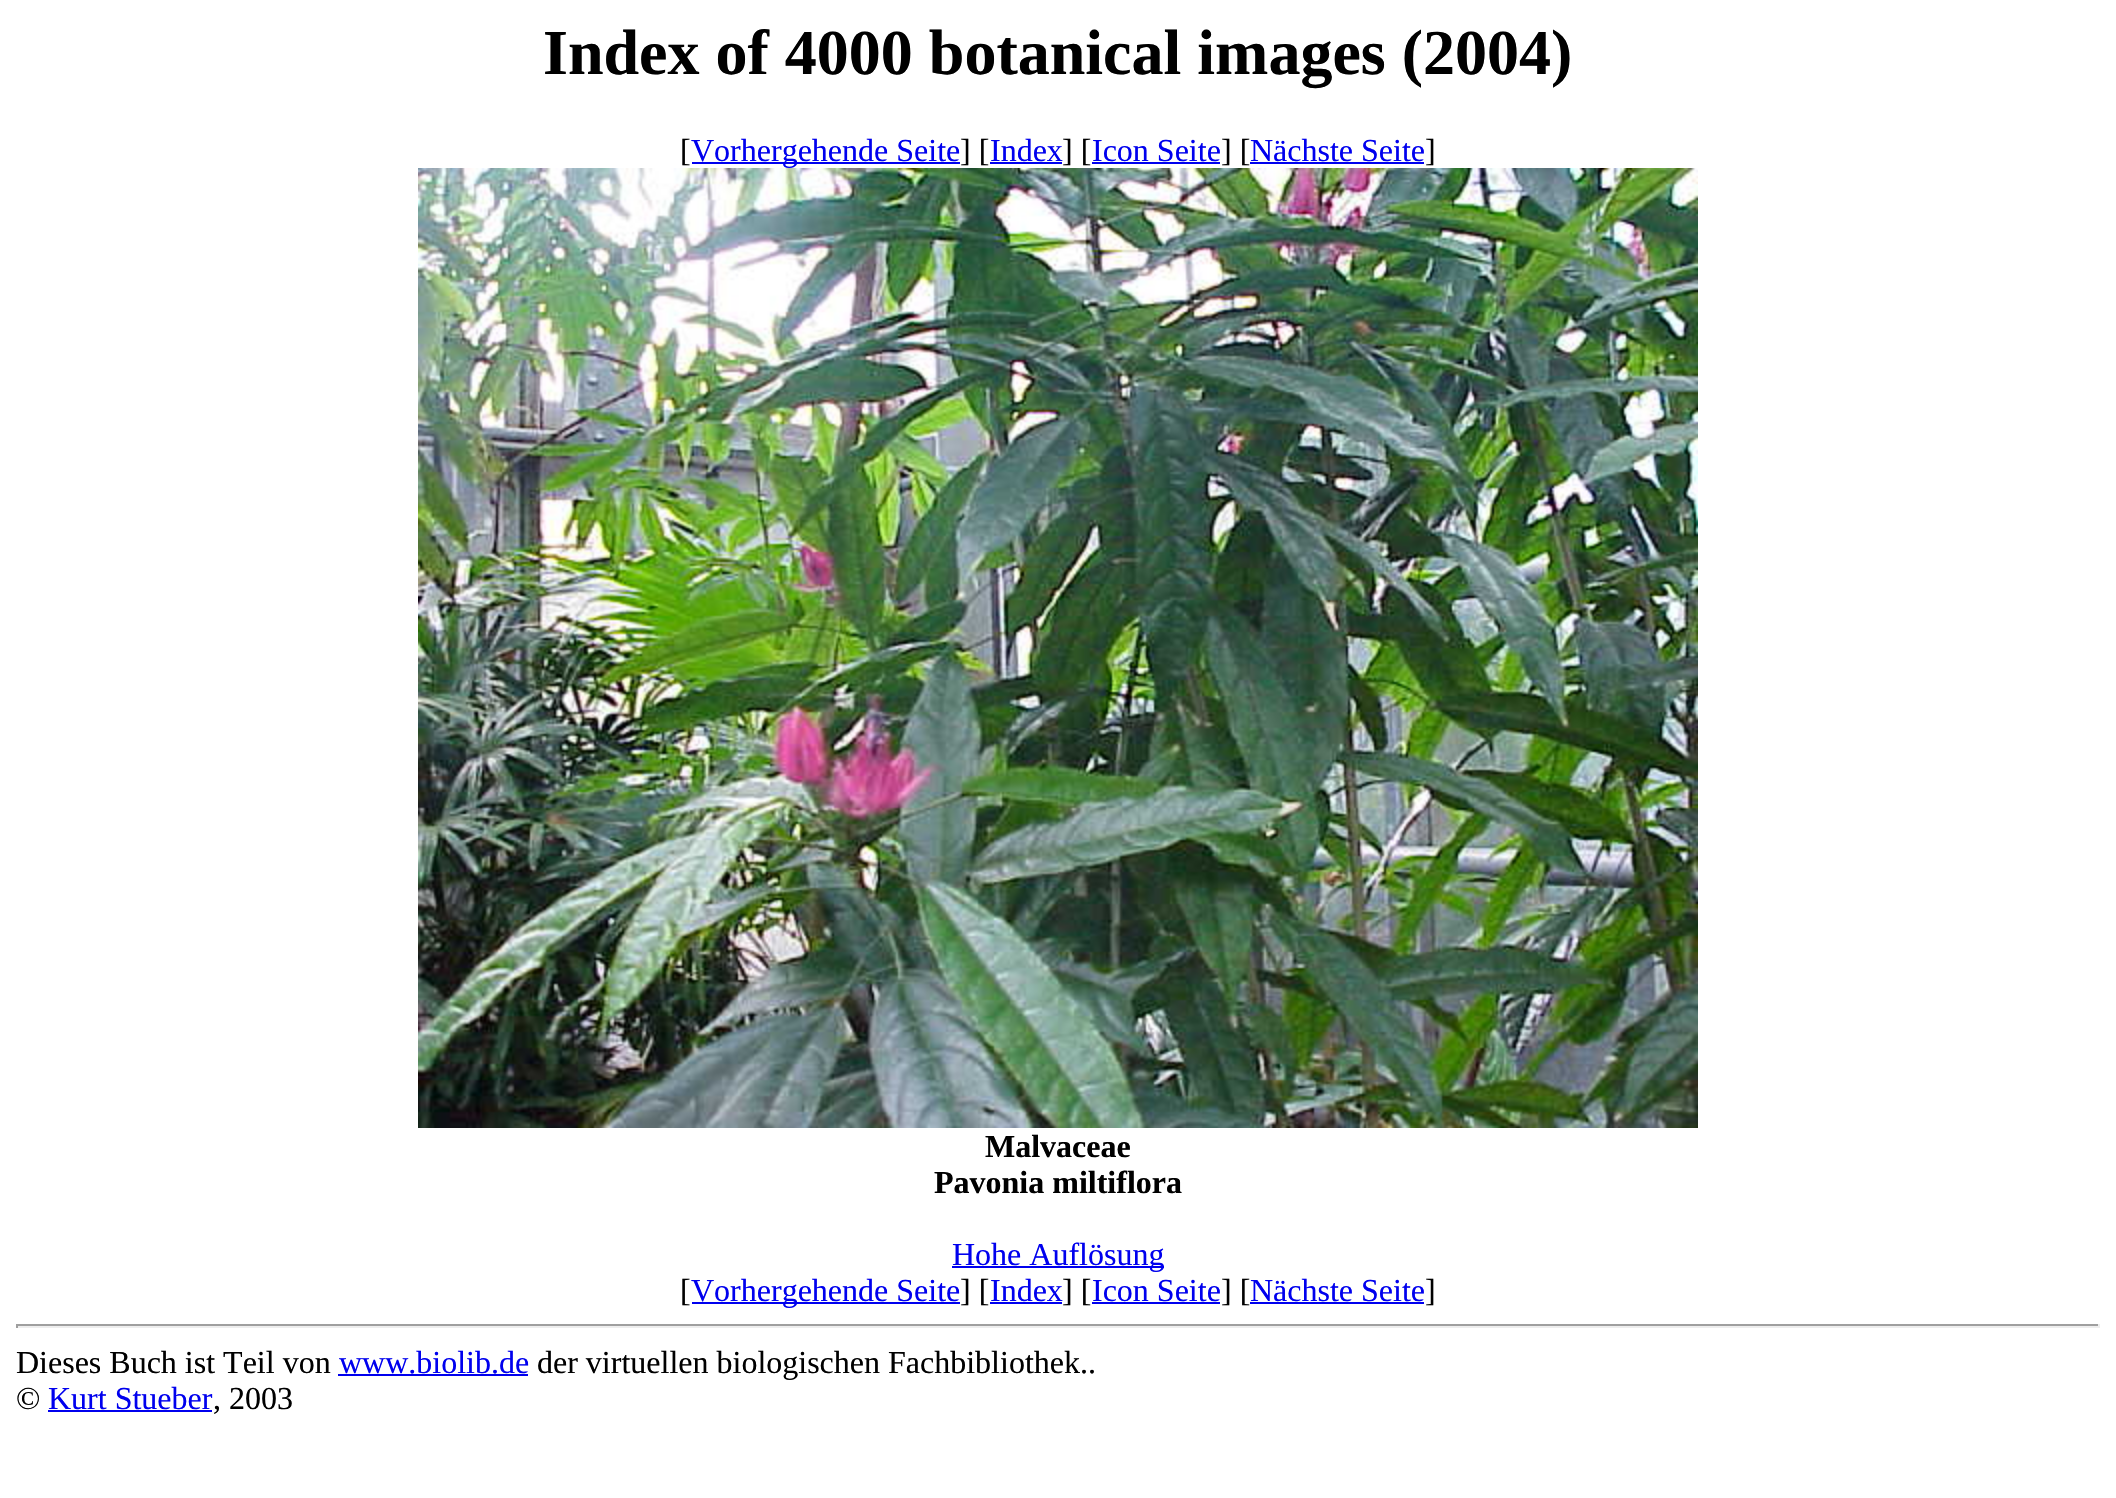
#include "include/core/SkBlurTypes.h"
#include "include/core/SkCanvas.h"
#include "include/core/SkData.h"
#include "include/core/SkFont.h"
#include "include/core/SkFontMgr.h"
#include "include/core/SkImage.h"
#include "include/core/SkMaskFilter.h"
#include "include/core/SkPaint.h"
#include "include/core/SkPathBuilder.h"
#include "include/core/SkTextBlob.h"
#include "include/effects/SkDashPathEffect.h"
#include "include/effects/SkGradientShader.h"
#include "include/utils/SkParsePath.h"

extern sk_sp<SkFontMgr> fontMgr;

void draw(SkCanvas* canvas) {
  SkPaint p;
  p.setAntiAlias(true);
  canvas->clear(SK_ColorWHITE);
  p.setColor(SkColorSetRGB(0, 0, 238));
  canvas->drawRect(SkRect::MakeLTRB(692, 162, 960, 164), p);
  canvas->drawRect(SkRect::MakeLTRB(990, 162, 1062, 164), p);
  canvas->drawRect(SkRect::MakeLTRB(1092, 162, 1220, 164), p);
  canvas->drawRect(SkRect::MakeLTRB(1250, 162, 1424, 164), p);
  canvas->drawImageRect(SkImages::DeferredFromEncodedData(SkData::MakeFromFileName("images/1.png")), SkRect::MakeLTRB(418, 168, 1698, 1128), SkSamplingOptions());
  canvas->drawRect(SkRect::MakeLTRB(952, 1266, 1164, 1268), p);
  canvas->drawRect(SkRect::MakeLTRB(692, 1302, 960, 1304), p);
  canvas->drawRect(SkRect::MakeLTRB(990, 1302, 1062, 1304), p);
  canvas->drawRect(SkRect::MakeLTRB(1092, 1302, 1220, 1304), p);
  canvas->drawRect(SkRect::MakeLTRB(1250, 1302, 1424, 1304), p);
  p.setColor(SkColorSetRGB(159, 159, 159));
  canvas->drawRect(SkRect::MakeLTRB(16, 1324, 2100, 1326), p);
  p.setColor(SkColorSetRGB(238, 238, 238));
  canvas->drawRect(SkRect::MakeLTRB(2098, 1324, 2100, 1328), p);
  canvas->drawRect(SkRect::MakeLTRB(16, 1326, 2100, 1328), p);
  p.setColor(SkColorSetRGB(159, 159, 159));
  canvas->drawRect(SkRect::MakeLTRB(16, 1324, 18, 1328), p);
  p.setColor(SkColorSetRGB(0, 0, 238));
  canvas->drawRect(SkRect::MakeLTRB(338, 1374, 528, 1376), p);
  canvas->drawRect(SkRect::MakeLTRB(48, 1410, 212, 1412), p);
  SkFont font1(fontMgr->matchFamilyStyle("Liberation Serif", SkFontStyle::Bold()), 64);
  font1.setSubpixel(true);
  p.setColor(SK_ColorBLACK);
  canvas->drawString("Index of 4000 botanical images (2004)", 543, 74, font1, p);
  SkFont font2(fontMgr->matchFamilyStyle("Liberation Serif", SkFontStyle::Normal()), 32);
  font2.setSubpixel(true);
  canvas->drawString("[", 680, 161, font2, p);
  p.setColor(SkColorSetRGB(0, 0, 238));
  canvas->drawString("Vorhergehende Seite", 691, 161, font2, p);
  p.setColor(SK_ColorBLACK);
  canvas->drawString("] [", 960, 161, font2, p);
  p.setColor(SkColorSetRGB(0, 0, 238));
  canvas->drawString("Index", 990, 161, font2, p);
  p.setColor(SK_ColorBLACK);
  canvas->drawString("] [", 1062, 161, font2, p);
  p.setColor(SkColorSetRGB(0, 0, 238));
  canvas->drawString("Icon Seite", 1092, 161, font2, p);
  p.setColor(SK_ColorBLACK);
  canvas->drawString("] [", 1221, 161, font2, p);
  p.setColor(SkColorSetRGB(0, 0, 238));
  canvas->drawString("Nächste Seite", 1250, 161, font2, p);
  p.setColor(SK_ColorBLACK);
  canvas->drawString("]", 1425, 161, font2, p);
  SkFont font3(fontMgr->matchFamilyStyle("Liberation Serif", SkFontStyle::Bold()), 32);
  font3.setSubpixel(true);
  canvas->drawString("Malvaceae", 985, 1157, font3, p);
  canvas->drawString("Pavonia miltiflora", 934, 1193, font3, p);
  p.setColor(SkColorSetRGB(0, 0, 238));
  canvas->drawString("Hohe Auflösung", 952, 1265, font2, p);
  p.setColor(SK_ColorBLACK);
  canvas->drawString("[", 680, 1301, font2, p);
  p.setColor(SkColorSetRGB(0, 0, 238));
  canvas->drawString("Vorhergehende Seite", 691, 1301, font2, p);
  p.setColor(SK_ColorBLACK);
  canvas->drawString("] [", 960, 1301, font2, p);
  p.setColor(SkColorSetRGB(0, 0, 238));
  canvas->drawString("Index", 990, 1301, font2, p);
  p.setColor(SK_ColorBLACK);
  canvas->drawString("] [", 1062, 1301, font2, p);
  p.setColor(SkColorSetRGB(0, 0, 238));
  canvas->drawString("Icon Seite", 1092, 1301, font2, p);
  p.setColor(SK_ColorBLACK);
  canvas->drawString("] [", 1221, 1301, font2, p);
  p.setColor(SkColorSetRGB(0, 0, 238));
  canvas->drawString("Nächste Seite", 1250, 1301, font2, p);
  p.setColor(SK_ColorBLACK);
  canvas->drawString("]", 1425, 1301, font2, p);
  canvas->drawString("Dieses Buch ist Teil von", 16, 1373, font2, p);
  p.setColor(SkColorSetRGB(0, 0, 238));
  canvas->drawString("www.biolib.de", 339, 1373, font2, p);
  p.setColor(SK_ColorBLACK);
  canvas->drawString("der virtuellen biologischen Fachbibliothek..", 537, 1373, font2, p);
  canvas->drawString("©", 16, 1409, font2, p);
  p.setColor(SkColorSetRGB(0, 0, 238));
  canvas->drawString("Kurt Stueber", 48, 1409, font2, p);
  p.setColor(SK_ColorBLACK);
  canvas->drawString(", 2003", 213, 1409, font2, p);
}
